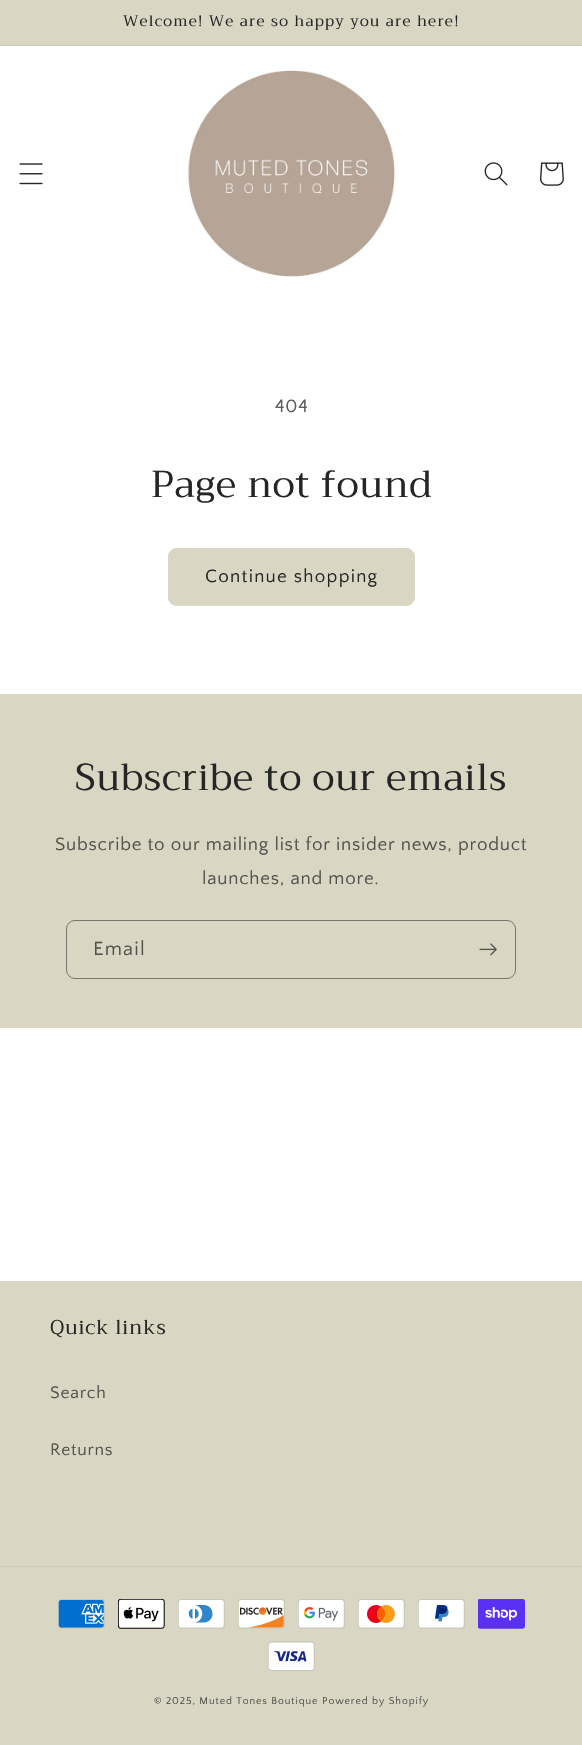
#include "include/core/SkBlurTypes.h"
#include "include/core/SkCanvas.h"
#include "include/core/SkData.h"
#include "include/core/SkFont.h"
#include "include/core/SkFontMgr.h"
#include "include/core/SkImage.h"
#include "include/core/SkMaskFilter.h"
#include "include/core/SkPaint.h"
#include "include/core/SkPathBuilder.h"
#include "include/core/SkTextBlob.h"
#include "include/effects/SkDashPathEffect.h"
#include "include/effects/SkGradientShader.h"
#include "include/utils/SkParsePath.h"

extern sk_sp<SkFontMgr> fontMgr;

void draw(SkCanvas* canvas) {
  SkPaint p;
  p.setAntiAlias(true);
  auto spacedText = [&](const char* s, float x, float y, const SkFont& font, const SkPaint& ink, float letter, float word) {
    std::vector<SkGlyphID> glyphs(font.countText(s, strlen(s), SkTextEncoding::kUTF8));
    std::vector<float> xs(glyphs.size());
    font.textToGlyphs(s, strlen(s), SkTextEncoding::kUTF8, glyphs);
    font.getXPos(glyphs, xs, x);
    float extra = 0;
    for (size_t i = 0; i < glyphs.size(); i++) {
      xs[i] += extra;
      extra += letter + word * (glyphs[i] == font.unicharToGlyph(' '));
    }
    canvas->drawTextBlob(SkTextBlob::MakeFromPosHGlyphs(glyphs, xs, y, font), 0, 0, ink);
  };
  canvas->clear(SK_ColorWHITE);
  p.setColor(SkColorSetRGB(217, 215, 196));
  canvas->drawRect(SkRect::MakeLTRB(0, 0, 582, 45), p);
  p.setColor(SkColorSetRGB(203, 201, 183));
  canvas->drawRect(SkRect::MakeLTRB(0, 45, 582, 46), p);
  canvas->drawImageRect(SkImages::DeferredFromEncodedData(SkData::MakeFromFileName("images/1.png")), SkRect::MakeLTRB(19, 163, 43, 185), SkSamplingOptions());
  canvas->drawImageRect(SkImages::DeferredFromEncodedData(SkData::MakeFromFileName("images/2.png")), SkRect::MakeLTRB(188, 70, 396, 277), SkSamplingOptions());
  canvas->drawImageRect(SkImages::DeferredFromEncodedData(SkData::MakeFromFileName("images/3.png")), SkRect::MakeLTRB(484, 162, 508, 186), SkSamplingOptions());
  canvas->drawImageRect(SkImages::DeferredFromEncodedData(SkData::MakeFromFileName("images/4.png")), SkRect::MakeLTRB(540, 162, 564, 186), SkSamplingOptions());
  p.setColor(SkColorSetRGB(217, 215, 196));
  canvas->drawRoundRect(SkRect::MakeLTRB(168, 548, 415, 606), 9, 9, p);
  p.setStyle(SkPaint::kStroke_Style);
  p.setStrokeWidth(1);
  canvas->drawRoundRect(SkRect::MakeLTRB(168.5f, 548.5f, 414.5f, 605.5f), 8.5f, 8.5f, p);
  p.setStyle(SkPaint::kFill_Style);
  canvas->drawRect(SkRect::MakeLTRB(0, 694, 582, 1028), p);
  p.setStyle(SkPaint::kStroke_Style);
  p.setColor(SkColorSetRGB(118, 117, 109));
  canvas->drawRoundRect(SkRect::MakeLTRB(66.5f, 920.5f, 515.5f, 978.5f), 8.5f, 8.5f, p);
  canvas->drawImageRect(SkImages::DeferredFromEncodedData(SkData::MakeFromFileName("images/5.png")), SkRect::MakeLTRB(479, 943, 497, 956), SkSamplingOptions());
  p.setStyle(SkPaint::kFill_Style);
  p.setColor(SkColorSetRGB(217, 215, 196));
  canvas->drawRect(SkRect::MakeLTRB(0, 1281, 582, 1745), p);
  p.setColor(SkColorSetRGB(203, 201, 183));
  canvas->drawRect(SkRect::MakeLTRB(0, 1566, 582, 1567), p);
  canvas->drawImageRect(SkImages::DeferredFromEncodedData(SkData::MakeFromFileName("images/6.png")), SkRect::MakeLTRB(58, 1599, 105, 1629), SkSamplingOptions());
  canvas->drawImageRect(SkImages::DeferredFromEncodedData(SkData::MakeFromFileName("images/7.png")), SkRect::MakeLTRB(118, 1599, 165, 1629), SkSamplingOptions());
  canvas->drawImageRect(SkImages::DeferredFromEncodedData(SkData::MakeFromFileName("images/8.png")), SkRect::MakeLTRB(178, 1599, 225, 1629), SkSamplingOptions());
  canvas->drawImageRect(SkImages::DeferredFromEncodedData(SkData::MakeFromFileName("images/9.png")), SkRect::MakeLTRB(238, 1599, 285, 1629), SkSamplingOptions());
  canvas->drawImageRect(SkImages::DeferredFromEncodedData(SkData::MakeFromFileName("images/10.png")), SkRect::MakeLTRB(298, 1599, 345, 1629), SkSamplingOptions());
  canvas->drawImageRect(SkImages::DeferredFromEncodedData(SkData::MakeFromFileName("images/11.png")), SkRect::MakeLTRB(358, 1599, 405, 1629), SkSamplingOptions());
  canvas->drawImageRect(SkImages::DeferredFromEncodedData(SkData::MakeFromFileName("images/12.png")), SkRect::MakeLTRB(418, 1599, 465, 1629), SkSamplingOptions());
  canvas->drawImageRect(SkImages::DeferredFromEncodedData(SkData::MakeFromFileName("images/13.png")), SkRect::MakeLTRB(478, 1599, 525, 1629), SkSamplingOptions());
  canvas->drawImageRect(SkImages::DeferredFromEncodedData(SkData::MakeFromFileName("images/14.png")), SkRect::MakeLTRB(268, 1641, 315, 1671), SkSamplingOptions());
  SkFont font1(fontMgr->matchFamilyStyle("Trirong", SkFontStyle::Normal()), 15);
  font1.setSubpixel(true);
  p.setColor(SkColorSetRGB(37, 37, 37));
  spacedText("Welcome! We are so happy you are here!", 123, 26, font1, p, 1.25f, 0);
  SkFont font2(fontMgr->matchFamilyStyle("Quattrocento Sans", SkFontStyle::Normal()), 18.75f);
  font2.setSubpixel(true);
  p.setColor(SkColorSetRGB(92, 92, 92));
  spacedText("404", 275, 412, font2, p, 0.75f, 0);
  SkFont font3(fontMgr->matchFamilyStyle("Trirong", SkFontStyle::Normal()), 37.5f);
  font3.setSubpixel(true);
  p.setColor(SkColorSetRGB(37, 37, 37));
  spacedText("Page not found", 151, 497, font3, p, 0.75f, 0);
  spacedText("Continue shopping", 205, 582, font2, p, 1.25f, 0);
  spacedText("Subscribe to our emails", 75, 790, font3, p, 0.75f, 0);
  p.setColor(SkColorSetRGB(82, 82, 77));
  spacedText("Subscribe to our mailing list for insider news, product", 55, 850, font2, p, 0.75f, 0);
  spacedText("launches, and more.", 202, 884, font2, p, 0.75f, 0);
  SkFont font4(fontMgr->matchFamilyStyle("Quattrocento Sans", SkFontStyle::Normal()), 20);
  font4.setSubpixel(true);
  spacedText("Email", 93, 955, font4, p, 1.25f, 0);
  SkFont font5(fontMgr->matchFamilyStyle("Trirong", SkFontStyle::Normal()), 20);
  font5.setSubpixel(true);
  p.setColor(SkColorSetRGB(37, 37, 37));
  spacedText("Quick links", 50, 1334, font5, p, 0.75f, 0);
  SkFont font6(fontMgr->matchFamilyStyle("Quattrocento Sans", SkFontStyle::Normal()), 17.5f);
  font6.setSubpixel(true);
  p.setColor(SkColorSetRGB(82, 82, 77));
  spacedText("Search", 50, 1398, font6, p, 0.75f, 0);
  spacedText("Returns", 50, 1455, font6, p, 0.75f, 0);
  SkFont font7(fontMgr->matchFamilyStyle("Quattrocento Sans", SkFontStyle::Normal()), 10.4f);
  font7.setSubpixel(true);
  spacedText("© 2025, Muted Tones Boutique", 154, 1704, font7, p, 0.9f, 0);
  spacedText("Powered by Shopify", 322, 1704, font7, p, 0.9f, 0);
}
